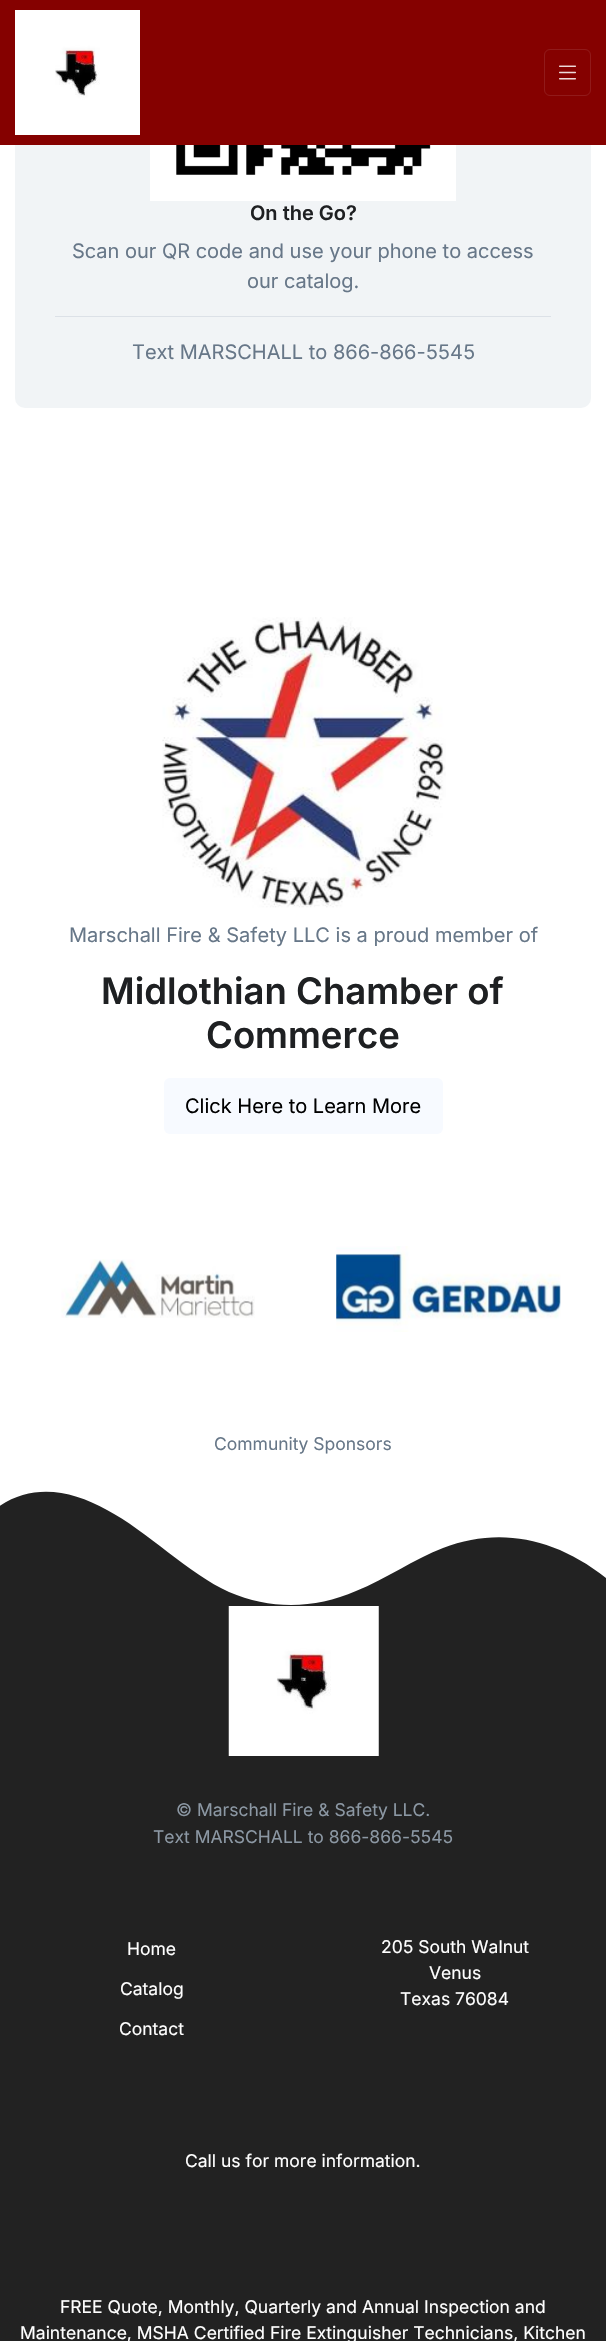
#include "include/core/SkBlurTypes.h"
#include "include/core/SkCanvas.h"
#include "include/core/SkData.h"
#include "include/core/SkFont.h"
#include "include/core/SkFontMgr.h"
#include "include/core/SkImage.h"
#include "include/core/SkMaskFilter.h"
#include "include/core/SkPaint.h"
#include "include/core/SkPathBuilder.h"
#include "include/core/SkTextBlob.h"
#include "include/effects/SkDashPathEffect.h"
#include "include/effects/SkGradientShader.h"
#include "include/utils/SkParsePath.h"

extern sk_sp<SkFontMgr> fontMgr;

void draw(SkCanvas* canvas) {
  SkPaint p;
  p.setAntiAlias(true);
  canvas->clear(SK_ColorWHITE);
  p.setColor(SkColorSetRGB(241, 244, 246));
  canvas->drawRoundRect(SkRect::MakeLTRB(15, -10, 591, 408), 10, 10, p);
  p.setColor(SkColorSetRGB(133, 1, 0));
  canvas->drawRect(SkRect::MakeLTRB(0, 0, 606, 145), p);
  canvas->drawImageRect(SkImages::DeferredFromEncodedData(SkData::MakeFromFileName("images/1.png")), SkRect::MakeLTRB(15, 10, 140, 135), SkSamplingOptions());
  p.setStyle(SkPaint::kStroke_Style);
  p.setStrokeWidth(1);
  p.setColor(SkColorSetRGB(145, 26, 26));
  canvas->drawRoundRect(SkRect::MakeLTRB(544.5f, 49.5f, 590.5f, 95.5f), 5.5f, 5.5f, p);
  canvas->drawImageRect(SkImages::DeferredFromEncodedData(SkData::MakeFromFileName("images/2.png")), SkRect::MakeLTRB(559, 65, 576, 80), SkSamplingOptions());
  canvas->drawImageRect(SkImages::DeferredFromEncodedData(SkData::MakeFromFileName("images/3.png")), SkRect::MakeLTRB(150, 145, 456, 201), SkSamplingOptions());
  p.setStyle(SkPaint::kFill_Style);
  p.setColor(SkColorSetRGB(220, 225, 231));
  canvas->drawRect(SkRect::MakeLTRB(55, 316, 551, 317), p);
  canvas->drawImageRect(SkImages::DeferredFromEncodedData(SkData::MakeFromFileName("images/4.png")), SkRect::MakeLTRB(162, 617, 446, 908), SkSamplingOptions());
  p.setColor(SkColorSetRGB(247, 250, 255));
  canvas->drawRoundRect(SkRect::MakeLTRB(164, 1078, 443, 1134), 6, 6, p);
  canvas->drawImageRect(SkImages::DeferredFromEncodedData(SkData::MakeFromFileName("images/5.png")), SkRect::MakeLTRB(61, 1259, 255, 1318), SkSamplingOptions());
  canvas->drawImageRect(SkImages::DeferredFromEncodedData(SkData::MakeFromFileName("images/6.png")), SkRect::MakeLTRB(336, 1246, 561, 1332), SkSamplingOptions());
  p.setColor(SkColorSetRGB(34, 34, 34));
  canvas->drawPath(SkPathBuilder().moveTo(443, 1548).cubicTo(414, 1559, 386, 1579, 356, 1591).cubicTo(315, 1609, 271, 1610, 229, 1592).cubicTo(189, 1574, 147, 1531, 107, 1510).cubicTo(71, 1490, 33, 1483, -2, 1507).lineTo(-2, 1606).lineTo(606, 1606).lineTo(606, 1578).cubicTo(554, 1537, 498, 1527, 443, 1548).close().detach(), p);
  canvas->drawRect(SkRect::MakeLTRB(0, 1606, 606, 2341), p);
  canvas->drawImageRect(SkImages::DeferredFromEncodedData(SkData::MakeFromFileName("images/7.png")), SkRect::MakeLTRB(228, 1606, 379, 1756), SkSamplingOptions());
  SkFont font1(fontMgr->matchFamilyStyle("Inter", SkFontStyle(600, SkFontStyle::kNormal_Width, SkFontStyle::kUpright_Slant)), 20);
  font1.setSubpixel(true);
  p.setColor(SkColorSetRGB(30, 32, 34));
  canvas->drawString("On the Go?", 250, 220, font1, p);
  SkFont font2(fontMgr->matchFamilyStyle("Inter", SkFontStyle::Normal()), 20);
  font2.setSubpixel(true);
  p.setColor(SkColorSetRGB(103, 119, 136));
  canvas->drawString("Scan our QR code and use your phone to access", 72, 258, font2, p);
  canvas->drawString("our catalog.", 247, 288, font2, p);
  canvas->drawString("Text MARSCHALL to 866-866-5545", 132, 359, font2, p);
  canvas->drawString("Marschall Fire & Safety LLC is a proud member of", 69, 942, font2, p);
  SkFont font3(fontMgr->matchFamilyStyle("Inter", SkFontStyle(600, SkFontStyle::kNormal_Width, SkFontStyle::kUpright_Slant)), 36.5f);
  font3.setSubpixel(true);
  p.setColor(SkColorSetRGB(30, 32, 34));
  canvas->drawString("Midlothian Chamber of", 101, 1004, font3, p);
  canvas->drawString("Commerce", 206, 1048, font3, p);
  p.setColor(SK_ColorBLACK);
  canvas->drawString("Click Here to Learn More", 185, 1113, font2, p);
  SkFont font4(fontMgr->matchFamilyStyle("Inter", SkFontStyle::Normal()), 17.5f);
  font4.setSubpixel(true);
  p.setColor(SkColorSetRGB(103, 119, 136));
  canvas->drawString("Community Sponsors", 214, 1450, font4, p);
  p.setColor(SkColorSetRGB(140, 152, 164));
  canvas->drawString("© Marschall Fire & Safety LLC.", 176, 1816, font4, p);
  canvas->drawString("Text MARSCHALL to 866-866-5545", 153, 1843, font4, p);
  p.setColor(SK_ColorWHITE);
  canvas->drawString("Home", 127, 1955, font4, p);
  canvas->drawString("Catalog", 120, 1995, font4, p);
  canvas->drawString("Contact", 119, 2035, font4, p);
  canvas->drawString("205 South Walnut", 381, 1953, font4, p);
  canvas->drawString("Venus", 429, 1979, font4, p);
  canvas->drawString("Texas 76084", 400, 2005, font4, p);
  canvas->drawString("Call us for more information.", 185, 2167, font4, p);
  canvas->drawString("FREE Quote, Monthly, Quarterly and Annual Inspection and", 60, 2313, font4, p);
  canvas->drawString("Maintenance, MSHA Certified Fire Extinguisher Technicians, Kitchen", 20, 2339, font4, p);
}
